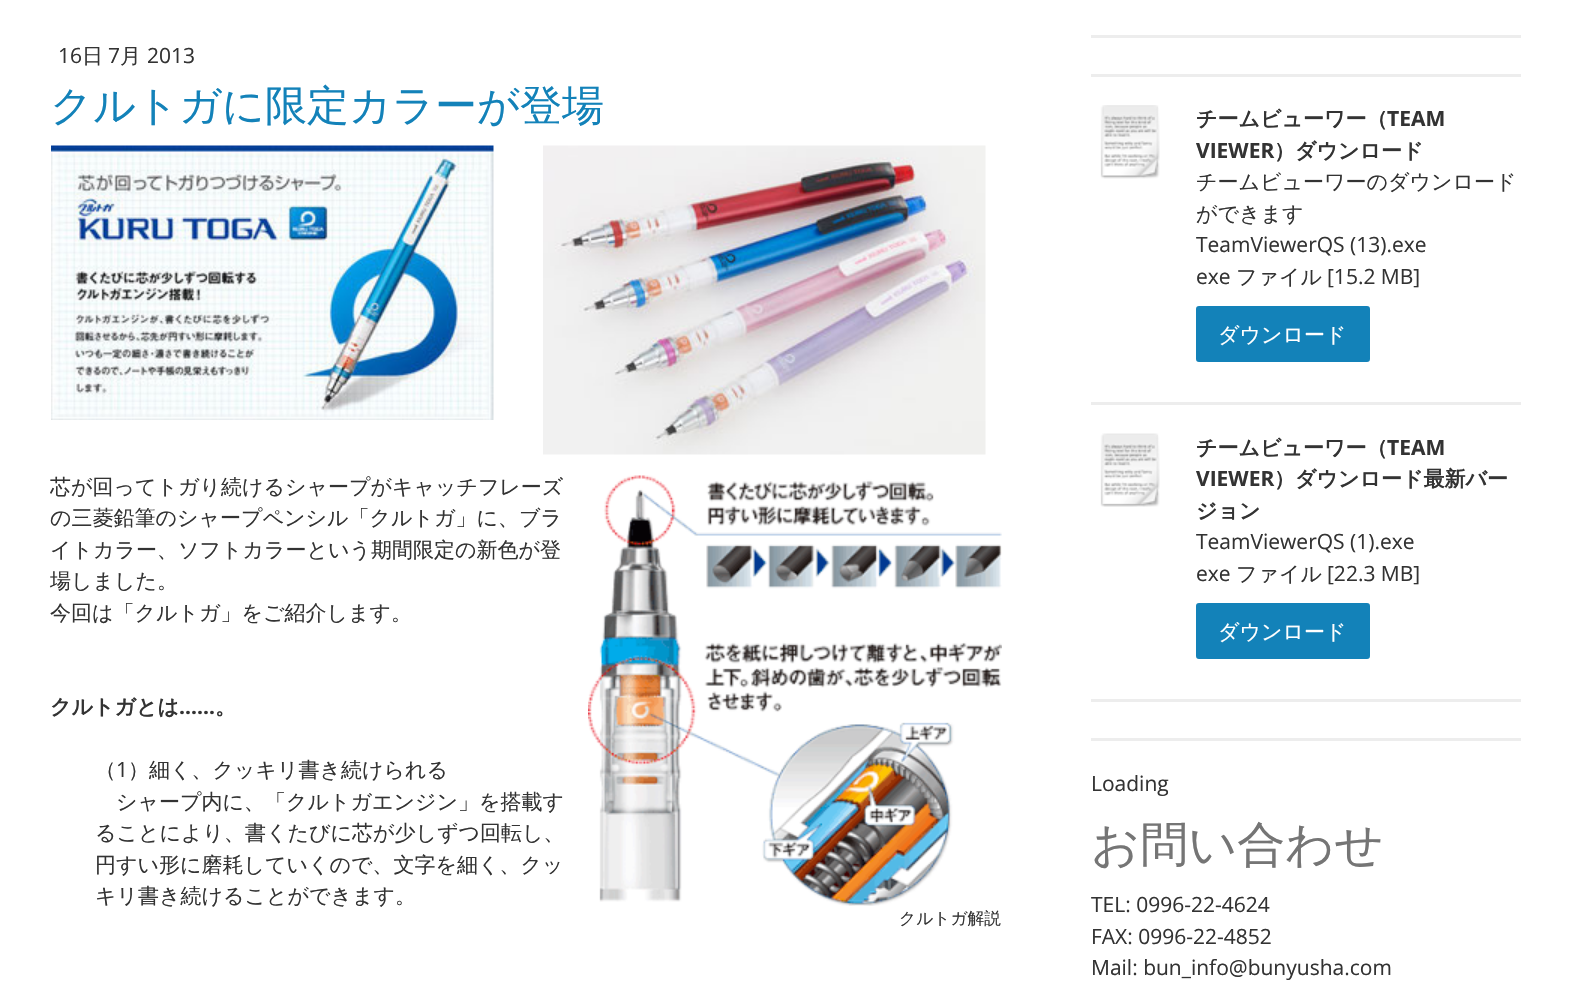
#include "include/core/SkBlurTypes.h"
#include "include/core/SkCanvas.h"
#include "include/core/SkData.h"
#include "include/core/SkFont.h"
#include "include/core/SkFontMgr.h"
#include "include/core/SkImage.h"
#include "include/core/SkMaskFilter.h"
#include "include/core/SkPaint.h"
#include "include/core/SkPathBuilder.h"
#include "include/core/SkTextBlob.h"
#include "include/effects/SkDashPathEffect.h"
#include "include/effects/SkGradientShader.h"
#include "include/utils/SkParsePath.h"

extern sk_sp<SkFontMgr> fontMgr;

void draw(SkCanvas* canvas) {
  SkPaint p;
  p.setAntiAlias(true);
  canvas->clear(SK_ColorWHITE);
  canvas->drawImageRect(SkImages::DeferredFromEncodedData(SkData::MakeFromFileName("images/1.png")), SkRect::MakeLTRB(51, 145, 494, 420), SkSamplingOptions());
  canvas->drawImageRect(SkImages::DeferredFromEncodedData(SkData::MakeFromFileName("images/2.png")), SkRect::MakeLTRB(543, 145, 986, 455), SkSamplingOptions());
  canvas->drawImageRect(SkImages::DeferredFromEncodedData(SkData::MakeFromFileName("images/3.png")), SkRect::MakeLTRB(588, 475, 1002, 906), SkSamplingOptions());
  p.setColor(SkColorSetRGB(237, 237, 237));
  canvas->drawRect(SkRect::MakeLTRB(1091, 35, 1521, 38), p);
  canvas->drawRect(SkRect::MakeLTRB(1091, 74, 1521, 77), p);
  canvas->drawImageRect(SkImages::DeferredFromEncodedData(SkData::MakeFromFileName("images/4.png")), SkRect::MakeLTRB(1100, 105, 1160, 179), SkSamplingOptions());
  p.setColor(SkColorSetRGB(19, 130, 185));
  canvas->drawRoundRect(SkRect::MakeLTRB(1197, 307, 1369, 361), 2, 2, p);
  p.setStyle(SkPaint::kStroke_Style);
  p.setStrokeWidth(2);
  canvas->drawRoundRect(SkRect::MakeLTRB(1197, 307, 1369, 361), 2, 2, p);
  p.setStyle(SkPaint::kFill_Style);
  p.setColor(SkColorSetRGB(237, 237, 237));
  canvas->drawRect(SkRect::MakeLTRB(1091, 402, 1521, 405), p);
  canvas->drawImageRect(SkImages::DeferredFromEncodedData(SkData::MakeFromFileName("images/5.png")), SkRect::MakeLTRB(1100, 433, 1160, 507), SkSamplingOptions());
  p.setColor(SkColorSetRGB(19, 130, 185));
  canvas->drawRoundRect(SkRect::MakeLTRB(1197, 604, 1369, 658), 2, 2, p);
  p.setStyle(SkPaint::kStroke_Style);
  canvas->drawRoundRect(SkRect::MakeLTRB(1197, 604, 1369, 658), 2, 2, p);
  p.setStyle(SkPaint::kFill_Style);
  p.setColor(SkColorSetRGB(237, 237, 237));
  canvas->drawRect(SkRect::MakeLTRB(1091, 699, 1521, 702), p);
  canvas->drawRect(SkRect::MakeLTRB(1091, 738, 1521, 741), p);
  SkFont font1(fontMgr->matchFamilyStyle("Open Sans", SkFontStyle::Normal()), 21);
  font1.setSubpixel(true);
  p.setColor(SkColorSetRGB(51, 51, 51));
  canvas->drawString("16", 58, 63, font1, p);
  SkFont font2(fontMgr->matchFamilyStyle("WenQuanYi Zen Hei", SkFontStyle(500, SkFontStyle::kNormal_Width, SkFontStyle::kUpright_Slant)), 21);
  font2.setSubpixel(true);
  canvas->drawString("日", 82, 63, font2, p);
  canvas->drawString("7", 108, 63, font1, p);
  canvas->drawString("月", 120, 63, font2, p);
  canvas->drawString("2013", 147, 63, font1, p);
  SkFont font3(fontMgr->matchFamilyStyle("WenQuanYi Zen Hei", SkFontStyle(500, SkFontStyle::kNormal_Width, SkFontStyle::kUpright_Slant)), 42);
  font3.setSubpixel(true);
  p.setColor(SkColorSetRGB(19, 130, 185));
  canvas->drawString("クルトガに限定カラーが登場", 50, 120, font3, p);
  p.setColor(SkColorSetRGB(51, 51, 51));
  canvas->drawString("芯が回ってトガり続けるシャープがキャッチフレーズ", 50, 494, font2, p);
  canvas->drawString("の三菱鉛筆のシャープペンシル「クルトガ」に、ブラ", 50, 525, font2, p);
  canvas->drawString("イトカラー、ソフトカラーという期間限定の新色が登", 50, 557, font2, p);
  canvas->drawString("場しました。", 50, 588, font2, p);
  canvas->drawString("今回は「クルトガ」をご紹介します。", 50, 620, font2, p);
  SkFont font4(fontMgr->matchFamilyStyle("WenQuanYi Zen Hei", SkFontStyle::Bold()), 21);
  font4.setSubpixel(true);
  canvas->drawString("クルトガとは", 50, 714, font4, p);
  SkFont font5(fontMgr->matchFamilyStyle("Open Sans", SkFontStyle::Bold()), 21);
  font5.setSubpixel(true);
  canvas->drawString("……", 179, 714, font5, p);
  canvas->drawString("。", 215, 714, font4, p);
  canvas->drawString("（", 95, 777, font2, p);
  canvas->drawString("1", 116, 777, font1, p);
  canvas->drawString("）細く、クッキリ書き続けられる", 128, 777, font2, p);
  canvas->drawString("シャープ内に、「クルトガエンジン」を搭載す", 116, 809, font2, p);
  canvas->drawString("ることにより、書くたびに芯が少しずつ回転し、", 95, 840, font2, p);
  canvas->drawString("円すい形に磨耗していくので、文字を細く、クッ", 95, 872, font2, p);
  canvas->drawString("キリ書き続けることができます。", 95, 903, font2, p);
  SkFont font6(fontMgr->matchFamilyStyle("WenQuanYi Zen Hei", SkFontStyle(500, SkFontStyle::kNormal_Width, SkFontStyle::kUpright_Slant)), 16.75f);
  font6.setSubpixel(true);
  canvas->drawString("クルトガ解説", 899, 924, font6, p);
  canvas->drawString("チームビューワー（", 1196, 126, font4, p);
  canvas->drawString("TEAM", 1387, 126, font5, p);
  canvas->drawString("VIEWER", 1196, 158, font5, p);
  canvas->drawString("）ダウンロード", 1274, 158, font4, p);
  canvas->drawString("チームビューワーのダウンロード", 1196, 189, font2, p);
  canvas->drawString("ができます", 1196, 221, font2, p);
  canvas->drawString("TeamViewerQS (13).exe", 1196, 252, font1, p);
  canvas->drawString("exe", 1196, 284, font1, p);
  canvas->drawString("ファイル", 1236, 284, font2, p);
  canvas->drawString("[15.2 MB]", 1327, 284, font1, p);
  p.setColor(SK_ColorWHITE);
  canvas->drawString("ダウンロード", 1218, 342, font2, p);
  p.setColor(SkColorSetRGB(51, 51, 51));
  canvas->drawString("チームビューワー（", 1196, 455, font4, p);
  canvas->drawString("TEAM", 1387, 455, font5, p);
  canvas->drawString("VIEWER", 1196, 486, font5, p);
  canvas->drawString("）ダウンロード最新バー", 1274, 486, font4, p);
  canvas->drawString("ジョン", 1196, 518, font4, p);
  canvas->drawString("TeamViewerQS (1).exe", 1196, 549, font1, p);
  canvas->drawString("exe", 1196, 581, font1, p);
  canvas->drawString("ファイル", 1236, 581, font2, p);
  canvas->drawString("[22.3 MB]", 1327, 581, font1, p);
  p.setColor(SK_ColorWHITE);
  canvas->drawString("ダウンロード", 1218, 639, font2, p);
  p.setColor(SkColorSetRGB(51, 51, 51));
  canvas->drawString("Loading", 1091, 791, font1, p);
  SkFont font7(fontMgr->matchFamilyStyle("WenQuanYi Zen Hei", SkFontStyle(500, SkFontStyle::kNormal_Width, SkFontStyle::kUpright_Slant)), 48);
  font7.setSubpixel(true);
  p.setColor(SkColorSetRGB(117, 117, 117));
  canvas->drawString("お問い合わせ", 1091, 861, font7, p);
  p.setColor(SkColorSetRGB(51, 51, 51));
  canvas->drawString("TEL: 0996-22-4624", 1091, 912, font1, p);
  canvas->drawString("FAX: 0996-22-4852", 1091, 944, font1, p);
  canvas->drawString("Mail: bun_info@bunyusha.com", 1091, 975, font1, p);
}
